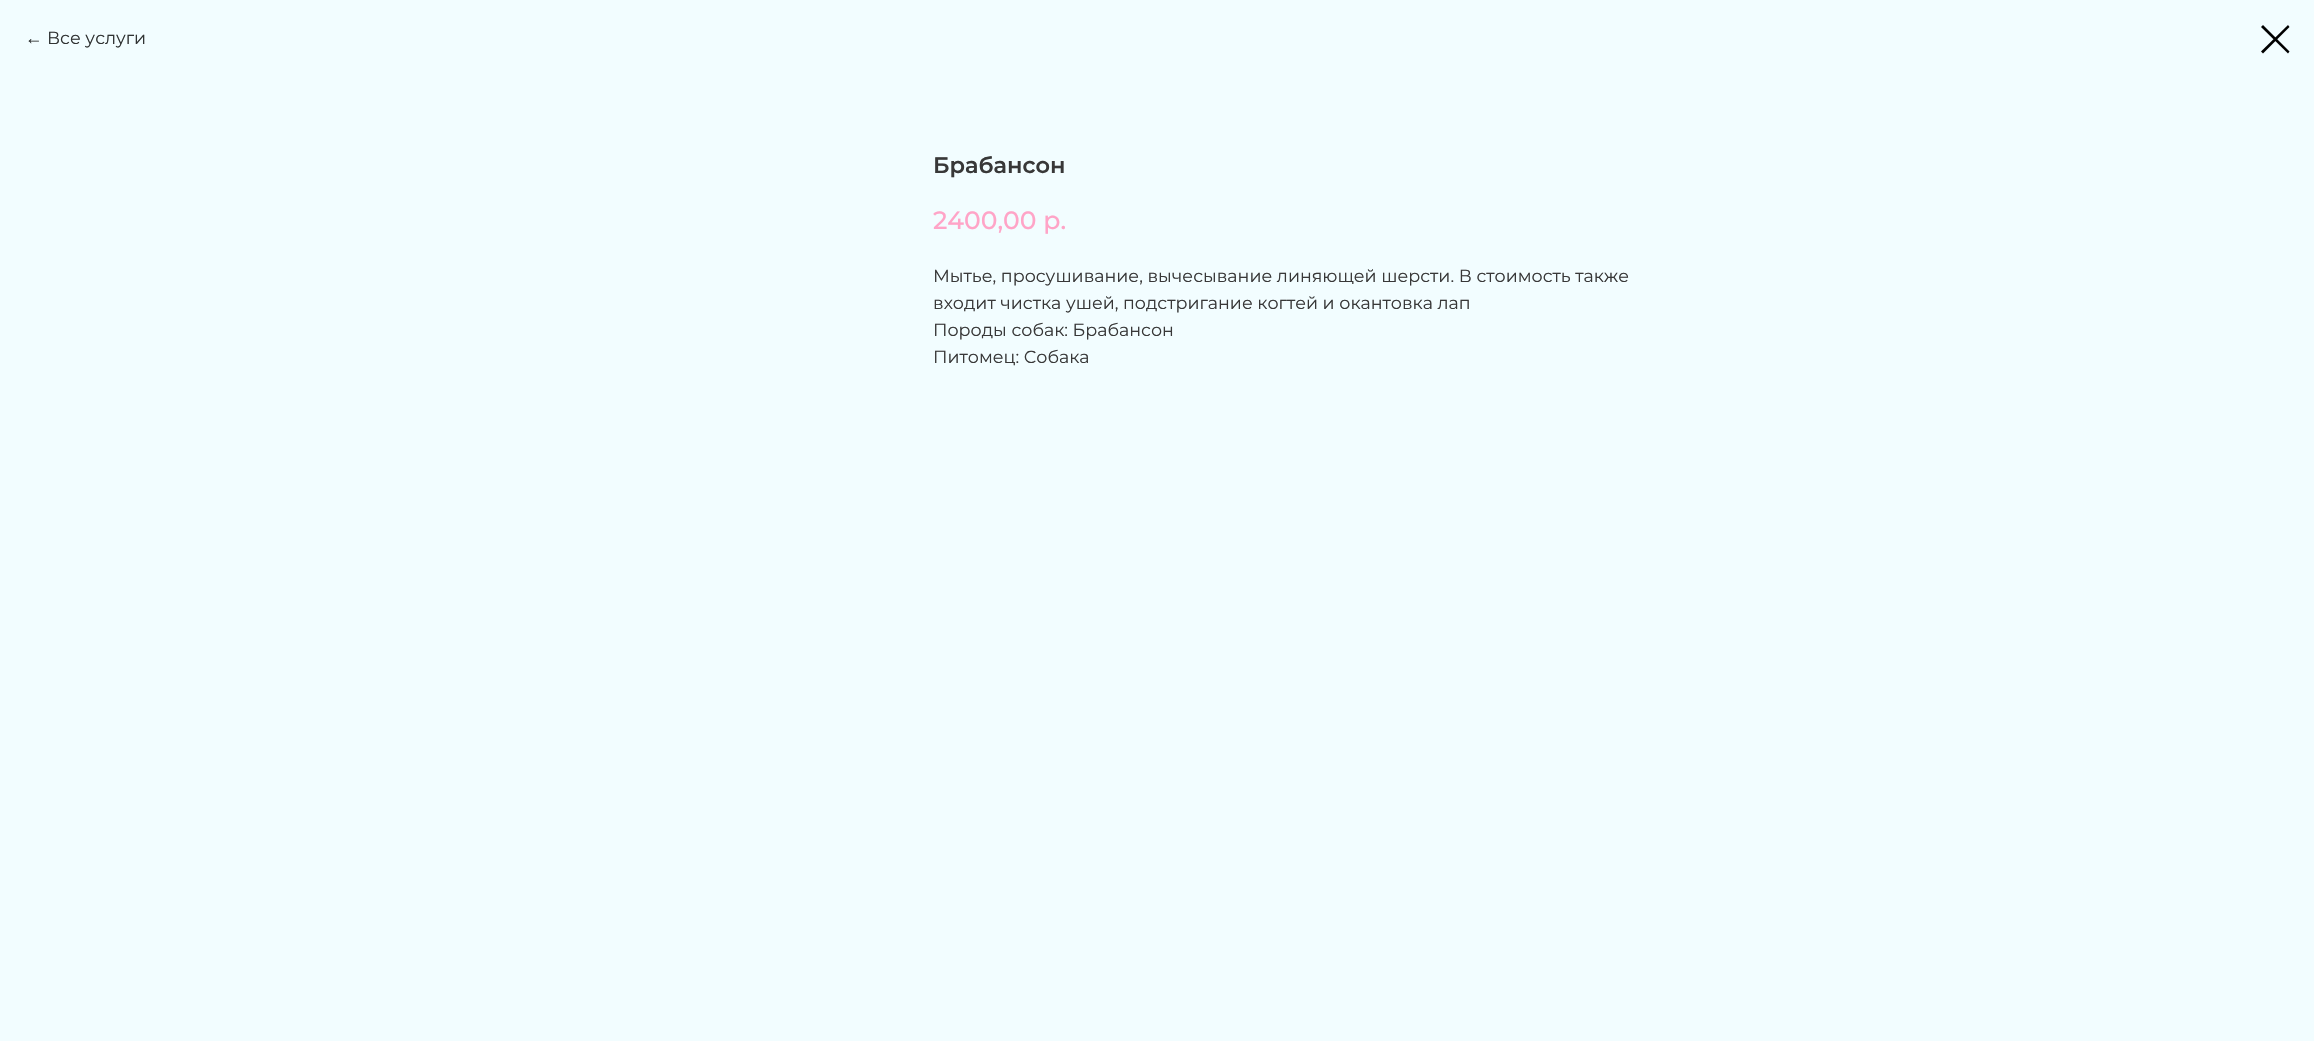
#include "include/core/SkBlurTypes.h"
#include "include/core/SkCanvas.h"
#include "include/core/SkData.h"
#include "include/core/SkFont.h"
#include "include/core/SkFontMgr.h"
#include "include/core/SkImage.h"
#include "include/core/SkMaskFilter.h"
#include "include/core/SkPaint.h"
#include "include/core/SkPathBuilder.h"
#include "include/core/SkTextBlob.h"
#include "include/effects/SkDashPathEffect.h"
#include "include/effects/SkGradientShader.h"
#include "include/utils/SkParsePath.h"

extern sk_sp<SkFontMgr> fontMgr;

void draw(SkCanvas* canvas) {
  SkPaint p;
  p.setAntiAlias(true);
  canvas->clear(SkColorSetRGB(242, 253, 255));
  p.setColor(SK_ColorBLACK);
  canvas->drawPath(SkPathBuilder(SkPathFillType::kEvenOdd).moveTo(2261, 27).lineTo(2263, 25).lineTo(2289.5f, 51.5f).lineTo(2288, 53.5f).close().detach(), p);
  canvas->drawPath(SkPathBuilder(SkPathFillType::kEvenOdd).moveTo(2288, 25).lineTo(2289.5f, 27).lineTo(2263, 53.5f).lineTo(2261, 51.5f).close().detach(), p);
  SkFont font1(fontMgr->matchFamilyStyle("Liberation Sans", SkFontStyle::Normal()), 17.5f);
  font1.setSubpixel(true);
  p.setColor(SkColorSetRGB(48, 51, 51));
  canvas->drawString("←", 25, 44, font1, p);
  SkFont font2(fontMgr->matchFamilyStyle("Montserrat", SkFontStyle::Normal()), 17.5f);
  font2.setSubpixel(true);
  canvas->drawString("Все услуги", 47, 44, font2, p);
  SkFont font3(fontMgr->matchFamilyStyle("Montserrat", SkFontStyle(600, SkFontStyle::kNormal_Width, SkFontStyle::kUpright_Slant)), 22.5f);
  font3.setSubpixel(true);
  p.setColor(SkColorSetRGB(56, 56, 56));
  canvas->drawString("Брабансон", 933, 173, font3, p);
  SkFont font4(fontMgr->matchFamilyStyle("Montserrat", SkFontStyle(500, SkFontStyle::kNormal_Width, SkFontStyle::kUpright_Slant)), 25);
  font4.setSubpixel(true);
  p.setColor(SkColorSetRGB(255, 164, 199));
  canvas->drawString("2400,00 р.", 933, 229, font4, p);
  p.setColor(SkColorSetRGB(56, 56, 56));
  canvas->drawString("Мытье, просушивание, вычесывание линяющей шерсти. В стоимость также", 933, 282, font2, p);
  canvas->drawString("входит чистка ушей, подстригание когтей и окантовка лап", 933, 309, font2, p);
  canvas->drawString("Породы собак: Брабансон", 933, 336, font2, p);
  canvas->drawString("Питомец: Собака", 933, 363, font2, p);
}
